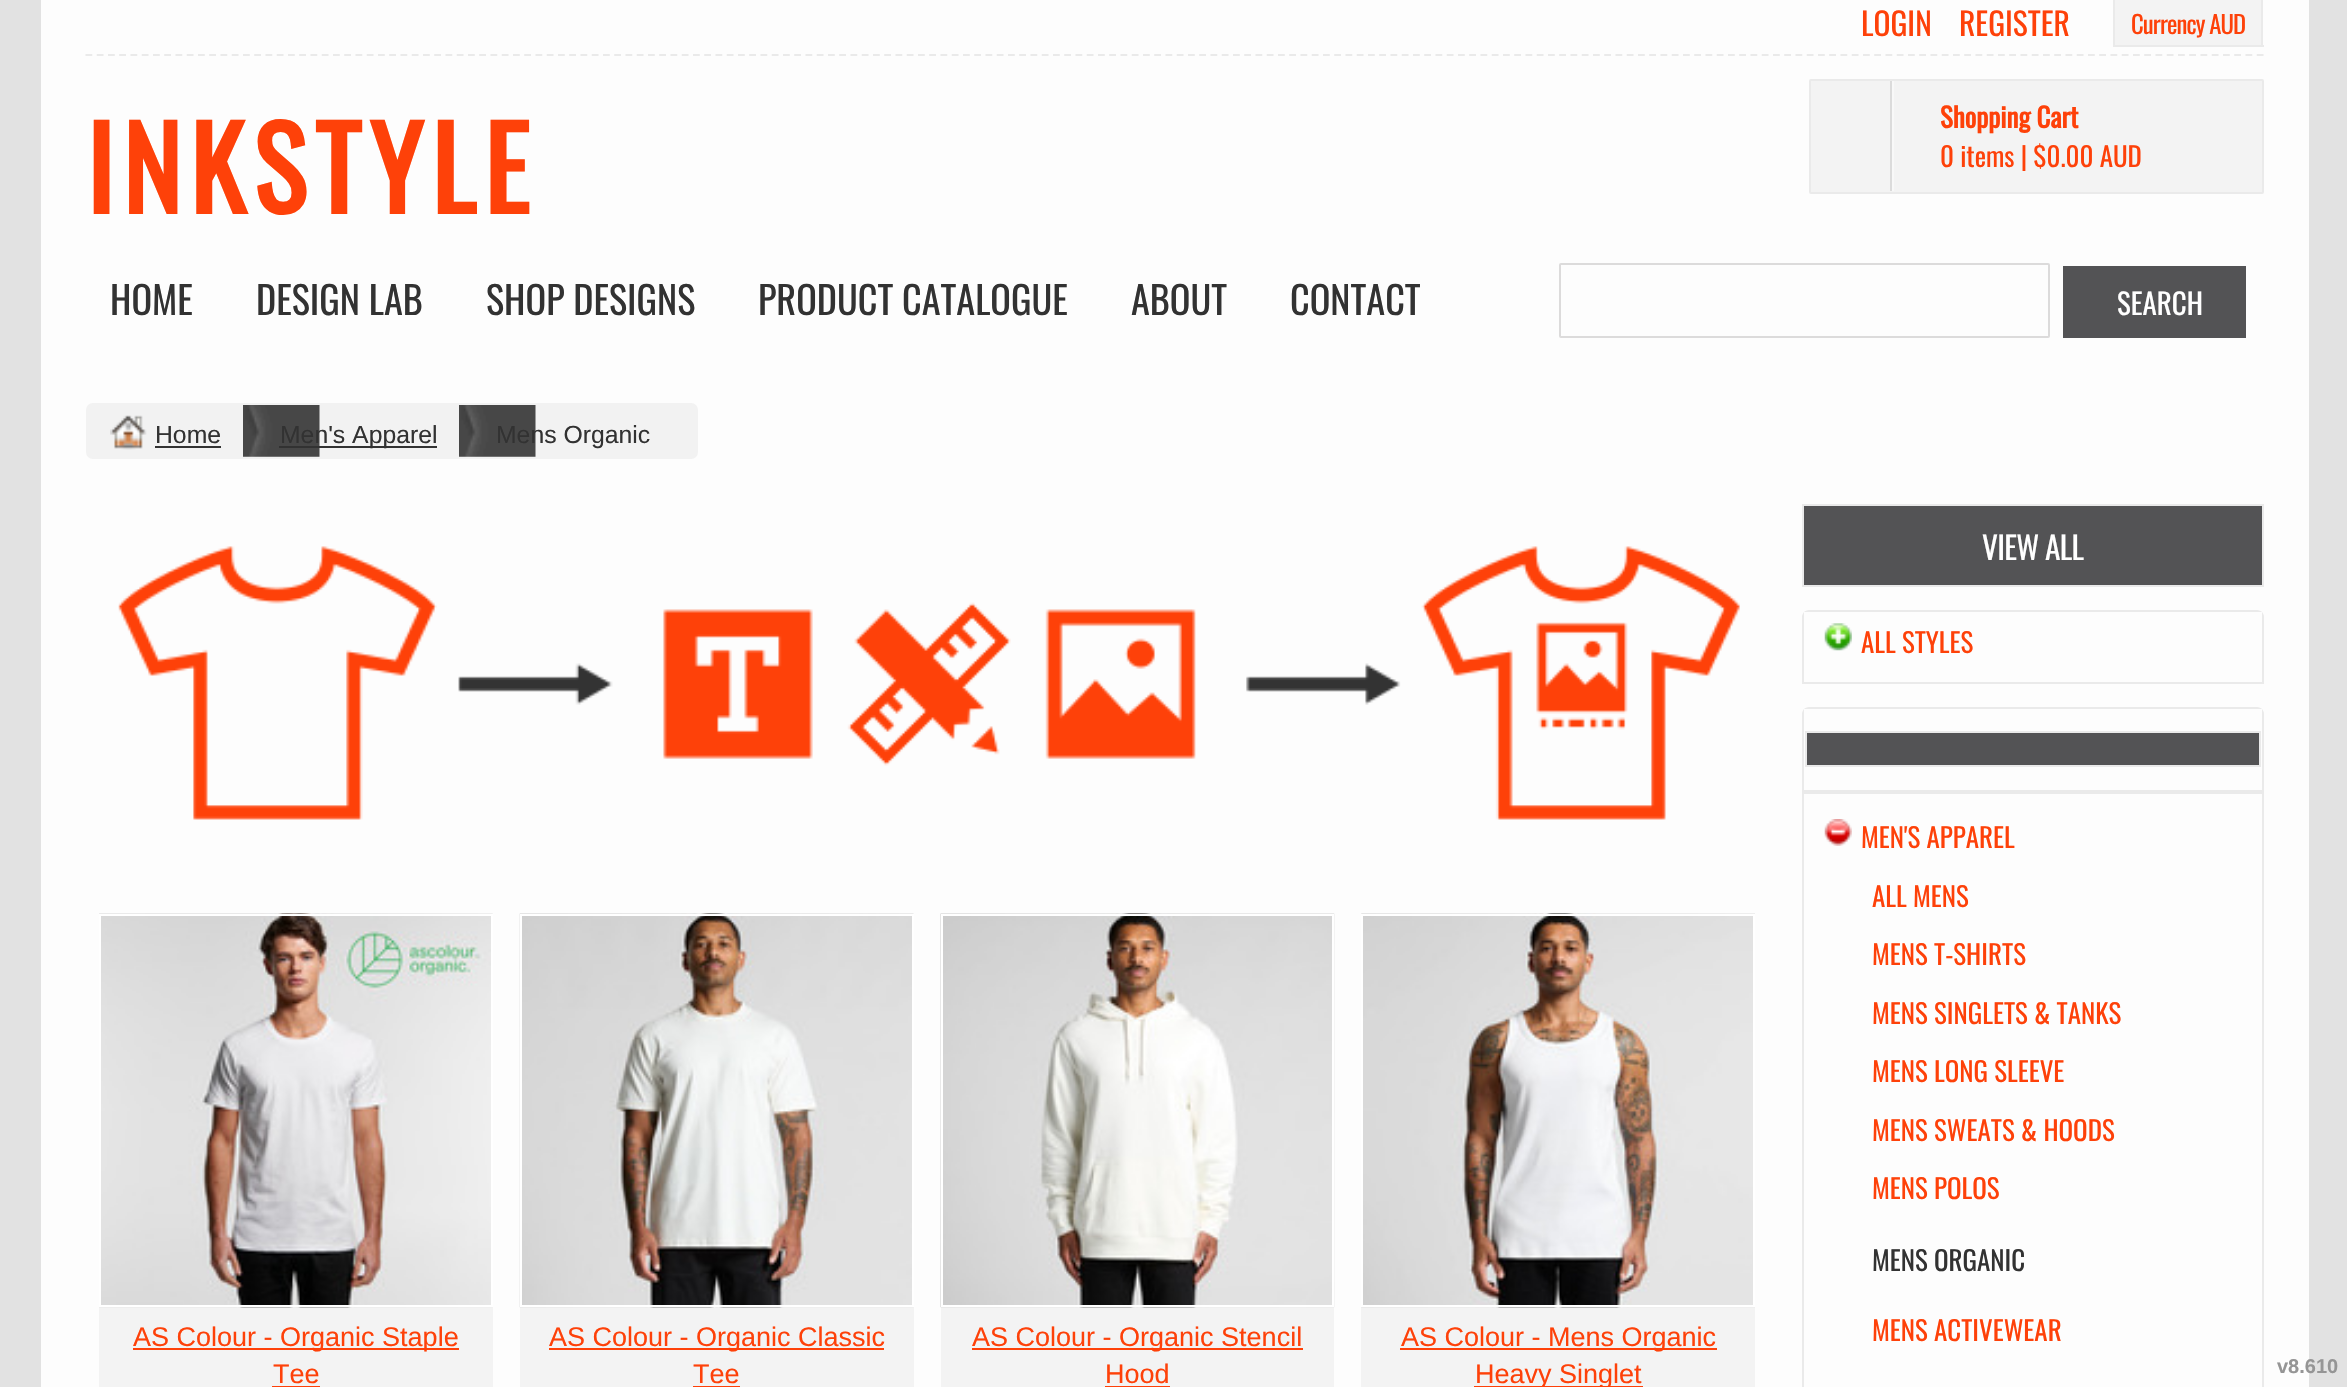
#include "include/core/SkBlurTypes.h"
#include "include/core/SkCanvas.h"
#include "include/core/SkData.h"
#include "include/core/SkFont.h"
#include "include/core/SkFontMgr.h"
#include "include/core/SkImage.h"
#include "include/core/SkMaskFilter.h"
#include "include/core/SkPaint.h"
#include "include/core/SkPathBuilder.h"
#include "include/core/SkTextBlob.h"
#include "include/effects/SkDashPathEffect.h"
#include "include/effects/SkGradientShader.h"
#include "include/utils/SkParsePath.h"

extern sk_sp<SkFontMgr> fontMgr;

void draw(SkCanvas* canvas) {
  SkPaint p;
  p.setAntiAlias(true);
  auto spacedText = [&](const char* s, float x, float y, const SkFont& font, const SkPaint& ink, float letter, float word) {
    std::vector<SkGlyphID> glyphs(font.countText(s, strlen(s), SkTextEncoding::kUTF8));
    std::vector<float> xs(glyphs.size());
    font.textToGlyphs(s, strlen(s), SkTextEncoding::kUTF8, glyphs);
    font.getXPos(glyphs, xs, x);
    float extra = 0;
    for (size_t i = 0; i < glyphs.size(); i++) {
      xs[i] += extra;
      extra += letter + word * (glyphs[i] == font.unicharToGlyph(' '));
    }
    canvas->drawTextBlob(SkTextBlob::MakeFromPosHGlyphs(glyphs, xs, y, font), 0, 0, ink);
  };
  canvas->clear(SkColorSetRGB(226, 226, 226));
  p.setColor(SkColorSetRGB(253, 253, 253));
  canvas->drawRect(SkRect::MakeLTRB(41, 0, 2309, 1387), p);
  p.setStyle(SkPaint::kStroke_Style);
  p.setStrokeWidth(2.2f);
  p.setColor(SkColorSetRGB(234, 234, 234));
  p.setPathEffect(SkDashPathEffect::Make({{6.75f, 4.5f}}, 0));
  canvas->drawPath(SkPathBuilder().moveTo(85.5f, 55).lineTo(2263.5f, 55).detach(), p);
  p.setPathEffect(nullptr);
  p.setStyle(SkPaint::kFill_Style);
  p.setColor(SkColorSetRGB(243, 243, 243));
  canvas->drawRect(SkRect::MakeLTRB(2115, 0, 2261, 45), p);
  p.setColor(SkColorSetRGB(234, 234, 234));
  canvas->drawRect(SkRect::MakeLTRB(2261, 0, 2263, 47), p);
  canvas->drawRect(SkRect::MakeLTRB(2115, 45, 2264, 47), p);
  canvas->drawRect(SkRect::MakeLTRB(2113, 0, 2115, 47), p);
  p.setColor(SkColorSetRGB(243, 243, 243));
  canvas->drawRoundRect(SkRect::MakeLTRB(1810, 80, 2263, 193), 1, 1, p);
  p.setStyle(SkPaint::kStroke_Style);
  p.setStrokeWidth(2);
  p.setColor(SkColorSetRGB(234, 234, 234));
  canvas->drawRoundRect(SkRect::MakeLTRB(1810, 80, 2263, 193), 1, 1, p);
  p.setStyle(SkPaint::kFill_Style);
  p.setColor(SkColorSetRGB(219, 219, 219));
  canvas->drawRect(SkRect::MakeLTRB(1890, 81, 1892, 191), p);
  p.setColor(SkColorSetRGB(248, 248, 248));
  canvas->drawRect(SkRect::MakeLTRB(1892, 81, 1894, 191), p);
  p.setStyle(SkPaint::kStroke_Style);
  p.setColor(SkColorSetRGB(220, 219, 219));
  canvas->drawRoundRect(SkRect::MakeLTRB(1560, 264, 2049, 337), 1, 1, p);
  p.setStyle(SkPaint::kFill_Style);
  p.setColor(SkColorSetRGB(83, 83, 85));
  canvas->drawRect(SkRect::MakeLTRB(2063, 266, 2246, 338), p);
  p.setColor(SkColorSetRGB(242, 242, 242));
  canvas->drawRoundRect(SkRect::MakeLTRB(87, 404, 697, 458), 6, 6, p);
  p.setStyle(SkPaint::kStroke_Style);
  canvas->drawRoundRect(SkRect::MakeLTRB(87, 404, 697, 458), 6, 6, p);
  canvas->drawImageRect(SkImages::DeferredFromEncodedData(SkData::MakeFromFileName("images/1.png")), SkRect::MakeLTRB(110, 415, 147, 450), SkSamplingOptions());
  p.setStyle(SkPaint::kFill_Style);
  p.setColor(SkColorSetRGB(50, 50, 50));
  canvas->drawRect(SkRect::MakeLTRB(155, 446, 221, 448), p);
  canvas->drawImageRect(SkImages::DeferredFromEncodedData(SkData::MakeFromFileName("images/2.png")), SkRect::MakeLTRB(243, 405, 320, 457), SkSamplingOptions());
  canvas->drawRect(SkRect::MakeLTRB(279, 446, 437, 448), p);
  canvas->drawImageRect(SkImages::DeferredFromEncodedData(SkData::MakeFromFileName("images/3.png")), SkRect::MakeLTRB(459, 405, 536, 457), SkSamplingOptions());
  p.setColor(SkColorSetRGB(83, 83, 85));
  canvas->drawRect(SkRect::MakeLTRB(1803, 505, 2263, 586), p);
  p.setStyle(SkPaint::kStroke_Style);
  p.setColor(SkColorSetRGB(234, 234, 234));
  canvas->drawRect(SkRect::MakeLTRB(1803, 505, 2263, 586), p);
  p.setStyle(SkPaint::kFill_Style);
  canvas->drawPath(SkPathBuilder(SkPathFillType::kEvenOdd).moveTo(1802, 617).lineTo(1802, 684).lineTo(2264, 684).lineTo(2264, 617).cubicTo(2264, 615, 2263, 613, 2262, 612).lineTo(2262, 682).lineTo(1804, 682).lineTo(1804, 612).cubicTo(1803, 613, 1802, 615, 1802, 617).close().moveTo(1809, 610).cubicTo(1807, 610, 1805, 611, 1804, 612).lineTo(2262, 612).cubicTo(2261, 611, 2259, 610, 2257, 610).close().detach(), p);
  canvas->drawImageRect(SkImages::DeferredFromEncodedData(SkData::MakeFromFileName("images/4.png")), SkRect::MakeLTRB(1824, 623, 1852, 651), SkSamplingOptions());
  canvas->drawPath(SkPathBuilder(SkPathFillType::kEvenOdd).moveTo(1802, 714).lineTo(1802, 792).lineTo(2264, 792).lineTo(2264, 714).cubicTo(2264, 712, 2263, 710, 2262, 709).lineTo(2262, 790).lineTo(1804, 790).lineTo(1804, 709).cubicTo(1803, 710, 1802, 712, 1802, 714).close().moveTo(1809, 707).cubicTo(1807, 707, 1805, 708, 1804, 709).lineTo(2262, 709).cubicTo(2261, 708, 2259, 707, 2257, 707).close().detach(), p);
  p.setColor(SkColorSetRGB(83, 83, 85));
  canvas->drawRect(SkRect::MakeLTRB(1806, 732, 2260, 766), p);
  p.setStyle(SkPaint::kStroke_Style);
  p.setColor(SkColorSetRGB(234, 234, 234));
  canvas->drawRect(SkRect::MakeLTRB(1806, 732, 2260, 766), p);
  canvas->drawRect(SkRect::MakeLTRB(1803, 793, 2263, 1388), p);
  canvas->drawImageRect(SkImages::DeferredFromEncodedData(SkData::MakeFromFileName("images/5.png")), SkRect::MakeLTRB(1824, 819, 1852, 846), SkSamplingOptions());
  canvas->drawImageRect(SkImages::DeferredFromEncodedData(SkData::MakeFromFileName("images/6.png")), SkRect::MakeLTRB(118, 546, 1740, 820), SkSamplingOptions());
  p.setStyle(SkPaint::kFill_Style);
  p.setColor(SkColorSetRGB(243, 243, 243));
  canvas->drawRect(SkRect::MakeLTRB(99, 1307, 493, 1387), p);
  canvas->drawImageRect(SkImages::DeferredFromEncodedData(SkData::MakeFromFileName("images/7.png")), SkRect::MakeLTRB(99, 913, 493, 1308), SkSamplingOptions());
  p.setStyle(SkPaint::kStroke_Style);
  p.setColor(SK_ColorWHITE);
  canvas->drawRect(SkRect::MakeLTRB(100, 915, 492, 1306), p);
  p.setStyle(SkPaint::kFill_Style);
  p.setColor(SkColorSetRGB(254, 65, 9));
  canvas->drawRect(SkRect::MakeLTRB(133, 1348, 459, 1350), p);
  canvas->drawRect(SkRect::MakeLTRB(272, 1386, 320, 1387), p);
  p.setColor(SkColorSetRGB(243, 243, 243));
  canvas->drawRect(SkRect::MakeLTRB(520, 1307, 914, 1387), p);
  canvas->drawImageRect(SkImages::DeferredFromEncodedData(SkData::MakeFromFileName("images/8.png")), SkRect::MakeLTRB(519, 913, 914, 1308), SkSamplingOptions());
  p.setStyle(SkPaint::kStroke_Style);
  p.setColor(SK_ColorWHITE);
  canvas->drawRect(SkRect::MakeLTRB(521, 915, 913, 1306), p);
  p.setStyle(SkPaint::kFill_Style);
  p.setColor(SkColorSetRGB(254, 65, 9));
  canvas->drawRect(SkRect::MakeLTRB(549, 1348, 884, 1350), p);
  canvas->drawRect(SkRect::MakeLTRB(693, 1386, 740, 1387), p);
  p.setColor(SkColorSetRGB(243, 243, 243));
  canvas->drawRect(SkRect::MakeLTRB(941, 1307, 1334, 1387), p);
  canvas->drawImageRect(SkImages::DeferredFromEncodedData(SkData::MakeFromFileName("images/9.png")), SkRect::MakeLTRB(940, 913, 1335, 1308), SkSamplingOptions());
  p.setStyle(SkPaint::kStroke_Style);
  p.setColor(SK_ColorWHITE);
  canvas->drawRect(SkRect::MakeLTRB(942, 915, 1333, 1306), p);
  p.setStyle(SkPaint::kFill_Style);
  p.setColor(SkColorSetRGB(254, 65, 9));
  canvas->drawRect(SkRect::MakeLTRB(972, 1348, 1303, 1350), p);
  canvas->drawRect(SkRect::MakeLTRB(1105, 1386, 1170, 1387), p);
  p.setColor(SkColorSetRGB(243, 243, 243));
  canvas->drawRect(SkRect::MakeLTRB(1361, 1307, 1755, 1387), p);
  canvas->drawImageRect(SkImages::DeferredFromEncodedData(SkData::MakeFromFileName("images/10.png")), SkRect::MakeLTRB(1361, 913, 1755, 1308), SkSamplingOptions());
  p.setStyle(SkPaint::kStroke_Style);
  p.setColor(SK_ColorWHITE);
  canvas->drawRect(SkRect::MakeLTRB(1362, 915, 1754, 1306), p);
  p.setStyle(SkPaint::kFill_Style);
  p.setColor(SkColorSetRGB(254, 65, 9));
  canvas->drawRect(SkRect::MakeLTRB(1400, 1348, 1717, 1350), p);
  canvas->drawRect(SkRect::MakeLTRB(1474, 1386, 1643, 1387), p);
  SkFont font1(fontMgr->matchFamilyStyle("Oswald", SkFontStyle::Normal()), 31.5f);
  font1.setSubpixel(true);
  canvas->drawString("LOGIN", 1861, 36, font1, p);
  canvas->drawString("REGISTER", 1959, 36, font1, p);
  SkFont font2(fontMgr->matchFamilyStyle("Oswald", SkFontStyle::Normal()), 24.75f);
  font2.setSubpixel(true);
  spacedText("Currency AUD", 2131, 34, font2, p, -0.9f, 0);
  SkFont font3(fontMgr->matchFamilyStyle("Oswald", SkFontStyle::Bold()), 112.5f);
  font3.setSubpixel(true);
  spacedText("INKSTYLE", 86, 214, font3, p, 8, 0);
  SkFont font4(fontMgr->matchFamilyStyle("Oswald", SkFontStyle::Bold()), 27);
  font4.setSubpixel(true);
  canvas->drawString("Shopping Cart", 1940, 128, font4, p);
  SkFont font5(fontMgr->matchFamilyStyle("Oswald", SkFontStyle::Normal()), 27);
  font5.setSubpixel(true);
  canvas->drawString("0 items | $0.00 AUD", 1940, 167, font5, p);
  SkFont font6(fontMgr->matchFamilyStyle("Oswald", SkFontStyle::Normal()), 38.25f);
  font6.setSubpixel(true);
  p.setColor(SkColorSetRGB(50, 50, 50));
  canvas->drawString("HOME", 110, 315, font6, p);
  canvas->drawString("DESIGN LAB", 256, 315, font6, p);
  canvas->drawString("SHOP DESIGNS", 486, 315, font6, p);
  canvas->drawString("PRODUCT CATALOGUE", 758, 315, font6, p);
  canvas->drawString("ABOUT", 1131, 315, font6, p);
  canvas->drawString("CONTACT", 1290, 315, font6, p);
  SkFont font7(fontMgr->matchFamilyStyle("Oswald", SkFontStyle::Normal()), 29);
  font7.setSubpixel(true);
  p.setColor(SK_ColorWHITE);
  canvas->drawString("SEARCH", 2117, 315, font7, p);
  SkFont font8(fontMgr->matchFamilyStyle("Liberation Sans", SkFontStyle::Normal()), 24.75f);
  font8.setSubpixel(true);
  p.setColor(SkColorSetRGB(50, 50, 50));
  canvas->drawString("Home", 155, 443, font8, p);
  canvas->drawString("Men's Apparel", 280, 443, font8, p);
  canvas->drawString("Mens Organic", 496, 443, font8, p);
  p.setColor(SK_ColorWHITE);
  spacedText("VIEW ALL", 1982, 560, font1, p, -0.75f, 0);
  p.setColor(SkColorSetRGB(254, 65, 9));
  canvas->drawString("ALL STYLES", 1861, 653, font5, p);
  canvas->drawString("MEN'S APPAREL", 1861, 848, font5, p);
  canvas->drawString("ALL MENS", 1872, 907, font5, p);
  canvas->drawString("MENS T-SHIRTS", 1872, 965, font5, p);
  canvas->drawString("MENS SINGLETS & TANKS", 1872, 1024, font5, p);
  canvas->drawString("MENS LONG SLEEVE", 1872, 1082, font5, p);
  canvas->drawString("MENS SWEATS & HOODS", 1872, 1141, font5, p);
  canvas->drawString("MENS POLOS", 1872, 1199, font5, p);
  p.setColor(SkColorSetRGB(50, 50, 50));
  canvas->drawString("MENS ORGANIC", 1872, 1271, font5, p);
  p.setColor(SkColorSetRGB(254, 65, 9));
  canvas->drawString("MENS ACTIVEWEAR", 1872, 1341, font5, p);
  SkFont font9(fontMgr->matchFamilyStyle("Liberation Sans", SkFontStyle::Normal()), 27);
  font9.setSubpixel(true);
  canvas->drawString("AS Colour - Organic Staple", 133, 1346, font9, p);
  canvas->drawString("Tee", 273, 1383, font9, p);
  canvas->drawString("AS Colour - Organic Classic", 549, 1346, font9, p);
  canvas->drawString("Tee", 693, 1383, font9, p);
  canvas->drawString("AS Colour - Organic Stencil", 972, 1346, font9, p);
  canvas->drawString("Hood", 1105, 1383, font9, p);
  canvas->drawString("AS Colour - Mens Organic", 1401, 1346, font9, p);
  canvas->drawString("Heavy Singlet", 1475, 1383, font9, p);
  SkFont font10(fontMgr->matchFamilyStyle("Liberation Sans", SkFontStyle::Bold()), 20);
  font10.setSubpixel(true);
  p.setColor(SkColorSetRGB(149, 149, 149));
  canvas->drawString("v8.610", 2277, 1373, font10, p);
}
